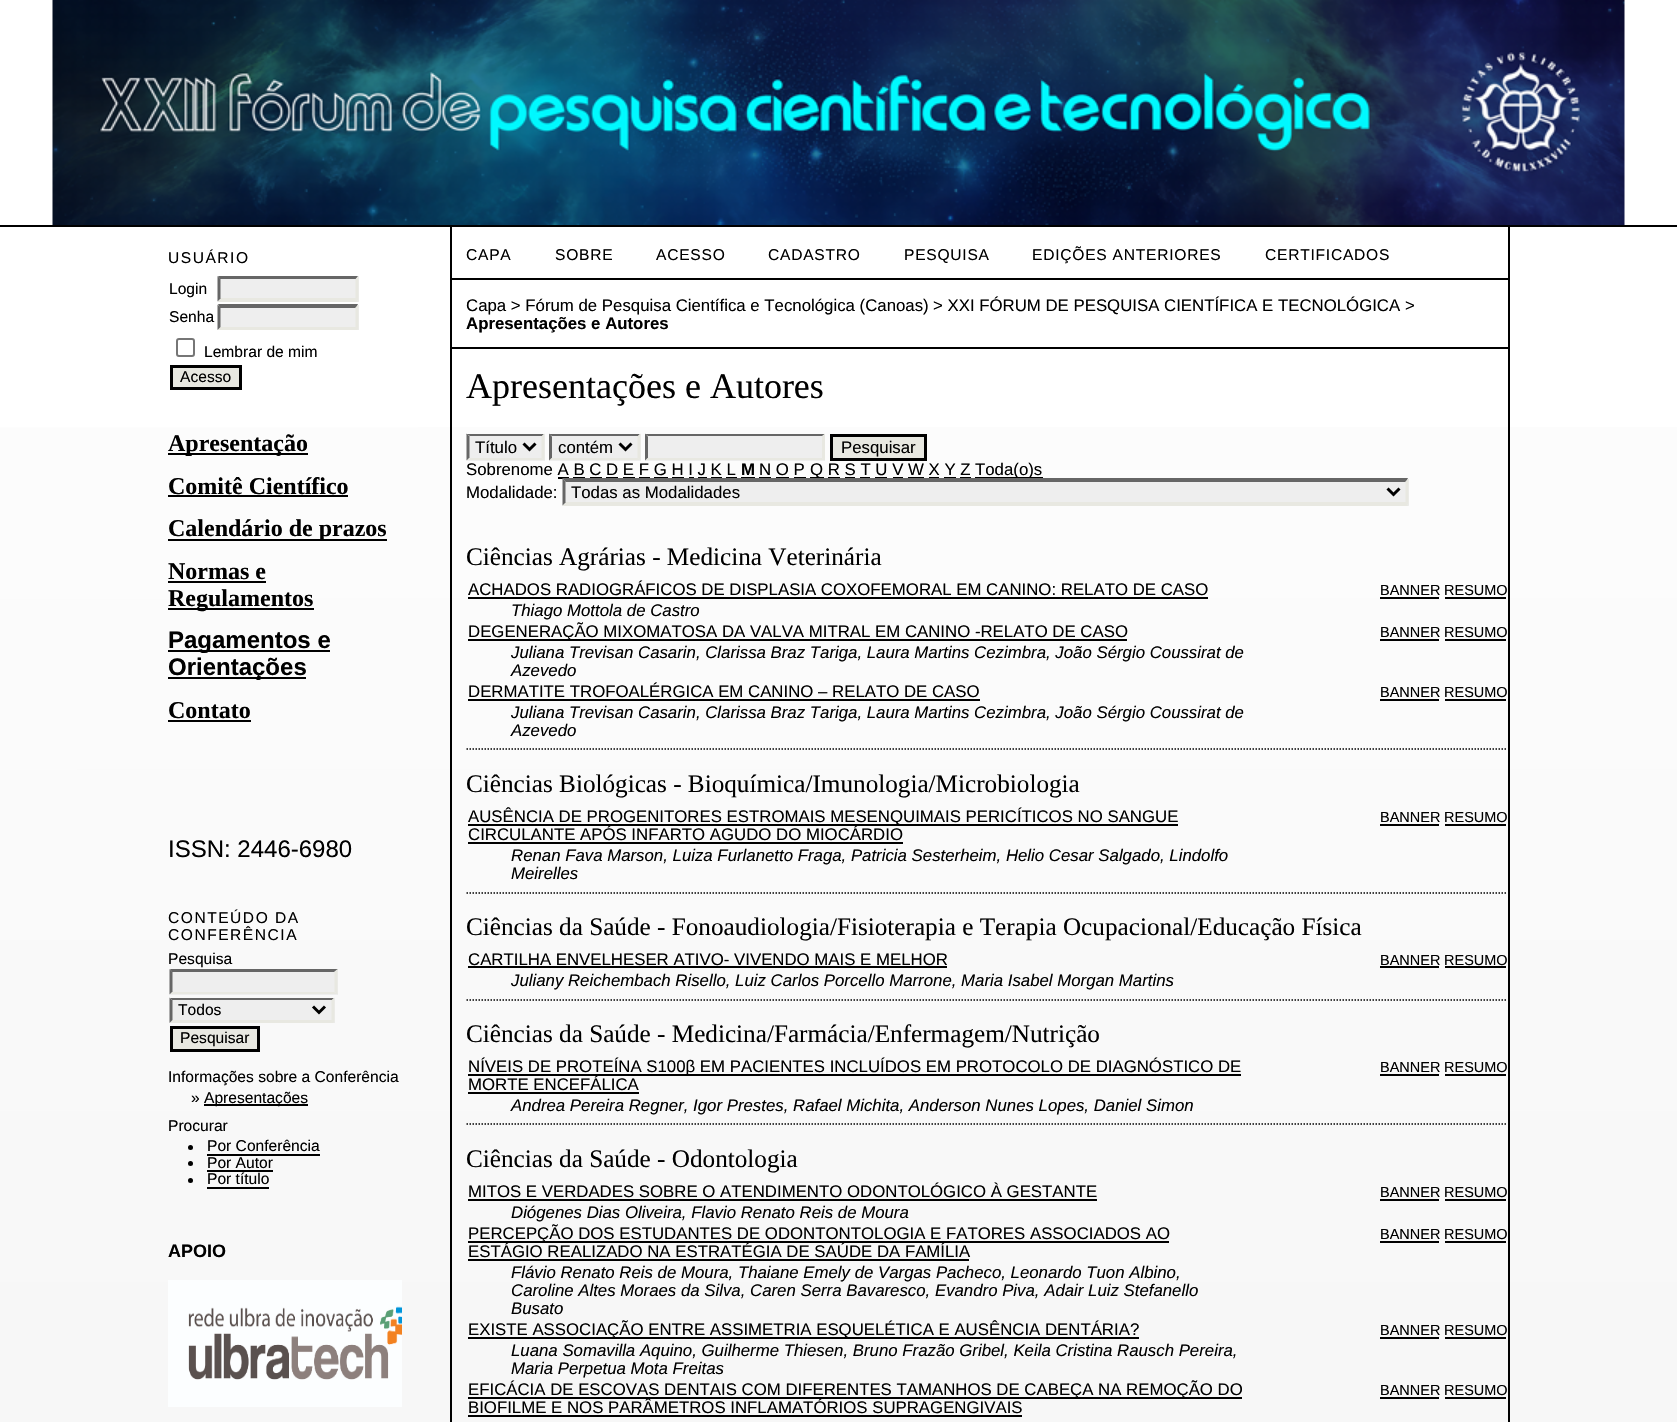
#include "include/core/SkBlurTypes.h"
#include "include/core/SkCanvas.h"
#include "include/core/SkData.h"
#include "include/core/SkFont.h"
#include "include/core/SkFontMgr.h"
#include "include/core/SkImage.h"
#include "include/core/SkMaskFilter.h"
#include "include/core/SkPaint.h"
#include "include/core/SkPathBuilder.h"
#include "include/core/SkTextBlob.h"
#include "include/effects/SkDashPathEffect.h"
#include "include/effects/SkGradientShader.h"
#include "include/utils/SkParsePath.h"

extern sk_sp<SkFontMgr> fontMgr;

void draw(SkCanvas* canvas) {
  SkPaint p;
  p.setAntiAlias(true);
  auto spacedText = [&](const char* s, float x, float y, const SkFont& font, const SkPaint& ink, float letter, float word) {
    std::vector<SkGlyphID> glyphs(font.countText(s, strlen(s), SkTextEncoding::kUTF8));
    std::vector<float> xs(glyphs.size());
    font.textToGlyphs(s, strlen(s), SkTextEncoding::kUTF8, glyphs);
    font.getXPos(glyphs, xs, x);
    float extra = 0;
    for (size_t i = 0; i < glyphs.size(); i++) {
      xs[i] += extra;
      extra += letter + word * (glyphs[i] == font.unicharToGlyph(' '));
    }
    canvas->drawTextBlob(SkTextBlob::MakeFromPosHGlyphs(glyphs, xs, y, font), 0, 0, ink);
  };
  canvas->clear(SK_ColorWHITE);
  {
    const SkColor colors[] = {SK_ColorWHITE, SkColorSetRGB(241, 241, 241), SkColorSetRGB(225, 225, 225), SkColorSetRGB(246, 246, 246), SkColorSetRGB(225, 225, 225)};
    const float stops[] = {0, 1, 1, 1, 1};
    const SkPoint ends[] = {{838, 0}, {839, 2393}};
    p.setShader(SkGradientShader::MakeLinear(ends, colors, stops, 5, SkTileMode::kClamp));
    p.setAlpha(255);
  }
  canvas->drawRect(SkRect::MakeLTRB(0, 427, 1677, 1422), p);
  p.setShader(nullptr);
  p.setColor(SK_ColorBLACK);
  canvas->drawRect(SkRect::MakeLTRB(0, 225, 1677, 227), p);
  canvas->drawImageRect(SkImages::DeferredFromEncodedData(SkData::MakeFromFileName("images/1.png")), SkRect::MakeLTRB(52, 0, 1625, 225), SkSamplingOptions());
  p.setColor(SkColorSetRGB(238, 238, 238));
  canvas->drawRect(SkRect::MakeLTRB(218, 276, 359, 302), p);
  p.setColor(SkColorSetRGB(102, 102, 102));
  canvas->drawPath(SkPathBuilder().moveTo(218, 276).lineTo(358, 276).lineTo(356, 279).lineTo(220, 279).close().detach(), p);
  p.setColor(SkColorSetRGB(232, 232, 225));
  canvas->drawPath(SkPathBuilder().moveTo(358.5f, 276).lineTo(358.5f, 301.5f).lineTo(355.5f, 298.5f).lineTo(355.5f, 279).close().detach(), p);
  canvas->drawPath(SkPathBuilder().moveTo(358, 302).lineTo(218, 302).lineTo(220, 298).lineTo(356, 298).close().detach(), p);
  p.setColor(SkColorSetRGB(102, 102, 102));
  canvas->drawPath(SkPathBuilder().moveTo(217.5f, 301.5f).lineTo(217.5f, 276).lineTo(220.5f, 279).lineTo(220.5f, 298.5f).close().detach(), p);
  p.setColor(SkColorSetRGB(238, 238, 238));
  canvas->drawRect(SkRect::MakeLTRB(218, 305, 359, 330), p);
  p.setColor(SkColorSetRGB(102, 102, 102));
  canvas->drawPath(SkPathBuilder().moveTo(218, 304).lineTo(358, 304).lineTo(356, 308).lineTo(220, 308).close().detach(), p);
  p.setColor(SkColorSetRGB(232, 232, 225));
  canvas->drawPath(SkPathBuilder().moveTo(358.5f, 304.5f).lineTo(358.5f, 330).lineTo(355.5f, 327).lineTo(355.5f, 307.5f).close().detach(), p);
  canvas->drawPath(SkPathBuilder().moveTo(358, 330).lineTo(218, 330).lineTo(220, 327).lineTo(356, 327).close().detach(), p);
  p.setColor(SkColorSetRGB(102, 102, 102));
  canvas->drawPath(SkPathBuilder().moveTo(217.5f, 330).lineTo(217.5f, 304.5f).lineTo(220.5f, 307.5f).lineTo(220.5f, 327).close().detach(), p);
  p.setStyle(SkPaint::kStroke_Style);
  p.setStrokeWidth(2);
  p.setColor(SkColorSetRGB(118, 118, 118));
  canvas->drawRoundRect(SkRect::MakeLTRB(177, 339, 194, 356), 2, 2, p);
  p.setStyle(SkPaint::kFill_Style);
  p.setColor(SkColorSetRGB(232, 232, 225));
  canvas->drawRect(SkRect::MakeLTRB(171.5f, 366.5f, 240.5f, 388.5f), p);
  p.setStyle(SkPaint::kStroke_Style);
  p.setStrokeWidth(3);
  p.setColor(SK_ColorBLACK);
  canvas->drawRect(SkRect::MakeLTRB(171.5f, 366.5f, 240.5f, 388.5f), p);
  p.setStyle(SkPaint::kFill_Style);
  canvas->drawRect(SkRect::MakeLTRB(168, 453, 308, 455), p);
  canvas->drawRect(SkRect::MakeLTRB(168, 495, 348, 497), p);
  canvas->drawRect(SkRect::MakeLTRB(168, 539, 387, 541), p);
  canvas->drawRect(SkRect::MakeLTRB(168, 581, 266, 583), p);
  canvas->drawRect(SkRect::MakeLTRB(168, 608, 314, 610), p);
  canvas->drawRect(SkRect::MakeLTRB(168, 650, 330, 652), p);
  canvas->drawRect(SkRect::MakeLTRB(168, 677, 306, 679), p);
  canvas->drawRect(SkRect::MakeLTRB(168, 720, 251, 722), p);
  p.setColor(SkColorSetRGB(238, 238, 238));
  canvas->drawRect(SkRect::MakeLTRB(170, 969, 338, 995), p);
  p.setColor(SkColorSetRGB(102, 102, 102));
  canvas->drawPath(SkPathBuilder().moveTo(170, 969).lineTo(338, 969).lineTo(334, 972).lineTo(172, 972).close().detach(), p);
  p.setColor(SkColorSetRGB(232, 232, 225));
  canvas->drawPath(SkPathBuilder().moveTo(337.5f, 969).lineTo(337.5f, 994.5f).lineTo(334.5f, 991.5f).lineTo(334.5f, 972).close().detach(), p);
  canvas->drawPath(SkPathBuilder().moveTo(338, 994).lineTo(170, 994).lineTo(172, 992).lineTo(334, 992).close().detach(), p);
  p.setColor(SkColorSetRGB(102, 102, 102));
  canvas->drawPath(SkPathBuilder().moveTo(169.5f, 994.5f).lineTo(169.5f, 969).lineTo(172.5f, 972).lineTo(172.5f, 991.5f).close().detach(), p);
  p.setColor(SkColorSetRGB(238, 238, 238));
  canvas->drawRect(SkRect::MakeLTRB(170, 998, 335, 1023), p);
  p.setColor(SkColorSetRGB(102, 102, 102));
  canvas->drawPath(SkPathBuilder().moveTo(170, 998).lineTo(334, 998).lineTo(332, 1000).lineTo(172, 1000).close().detach(), p);
  p.setColor(SkColorSetRGB(232, 232, 225));
  canvas->drawPath(SkPathBuilder().moveTo(334.5f, 997.5f).lineTo(334.5f, 1023).lineTo(331.5f, 1020).lineTo(331.5f, 1000.5f).close().detach(), p);
  canvas->drawPath(SkPathBuilder().moveTo(334, 1023).lineTo(170, 1023).lineTo(172, 1020).lineTo(332, 1020).close().detach(), p);
  p.setColor(SkColorSetRGB(102, 102, 102));
  canvas->drawPath(SkPathBuilder().moveTo(169.5f, 1023).lineTo(169.5f, 997.5f).lineTo(172.5f, 1000.5f).lineTo(172.5f, 1020).close().detach(), p);
  p.setStyle(SkPaint::kStroke_Style);
  p.setColor(SK_ColorBLACK);
  canvas->drawPath(SkPathBuilder().moveTo(313, 1006.5f).lineTo(319, 1012.5f).lineTo(325, 1006.5f).detach(), p);
  p.setStyle(SkPaint::kFill_Style);
  p.setColor(SkColorSetRGB(232, 232, 225));
  canvas->drawRect(SkRect::MakeLTRB(171.5f, 1027.5f, 258.5f, 1050.5f), p);
  p.setStyle(SkPaint::kStroke_Style);
  p.setColor(SK_ColorBLACK);
  canvas->drawRect(SkRect::MakeLTRB(171.5f, 1027.5f, 258.5f, 1050.5f), p);
  p.setStyle(SkPaint::kFill_Style);
  canvas->drawRect(SkRect::MakeLTRB(204, 1104, 308, 1106), p);
  canvas->drawCircle(190.5f, 1147.5f, 2.5f, p);
  canvas->drawRect(SkRect::MakeLTRB(207, 1154, 320, 1156), p);
  canvas->drawCircle(190.5f, 1163.5f, 2.5f, p);
  canvas->drawRect(SkRect::MakeLTRB(207, 1170, 273, 1172), p);
  canvas->drawCircle(190.5f, 1180.5f, 2.5f, p);
  canvas->drawRect(SkRect::MakeLTRB(207, 1187, 269, 1189), p);
  canvas->drawImageRect(SkImages::DeferredFromEncodedData(SkData::MakeFromFileName("images/2.png")), SkRect::MakeLTRB(168, 1280, 402, 1407), SkSamplingOptions());
  canvas->drawRect(SkRect::MakeLTRB(1508, 227, 1510, 1422), p);
  canvas->drawRect(SkRect::MakeLTRB(450, 227, 452, 1422), p);
  canvas->drawRect(SkRect::MakeLTRB(452, 278, 1508, 280), p);
  canvas->drawRect(SkRect::MakeLTRB(452, 347, 1508, 349), p);
  p.setColor(SkColorSetRGB(238, 238, 238));
  canvas->drawRect(SkRect::MakeLTRB(467, 434, 545, 461), p);
  p.setColor(SkColorSetRGB(102, 102, 102));
  canvas->drawPath(SkPathBuilder().moveTo(466, 434).lineTo(544, 434).lineTo(542, 436).lineTo(470, 436).close().detach(), p);
  p.setColor(SkColorSetRGB(232, 232, 225));
  canvas->drawPath(SkPathBuilder().moveTo(544.5f, 433.5f).lineTo(544.5f, 460.5f).lineTo(541.5f, 457.5f).lineTo(541.5f, 436.5f).close().detach(), p);
  canvas->drawPath(SkPathBuilder().moveTo(544, 460).lineTo(466, 460).lineTo(470, 458).lineTo(542, 458).close().detach(), p);
  p.setColor(SkColorSetRGB(102, 102, 102));
  canvas->drawPath(SkPathBuilder().moveTo(466.5f, 460.5f).lineTo(466.5f, 433.5f).lineTo(469.5f, 436.5f).lineTo(469.5f, 457.5f).close().detach(), p);
  p.setStyle(SkPaint::kStroke_Style);
  p.setColor(SK_ColorBLACK);
  canvas->drawPath(SkPathBuilder().moveTo(523.5f, 443.5f).lineTo(529.5f, 449.5f).lineTo(535.5f, 443.5f).detach(), p);
  p.setStyle(SkPaint::kFill_Style);
  p.setColor(SkColorSetRGB(238, 238, 238));
  canvas->drawRect(SkRect::MakeLTRB(549, 434, 641, 461), p);
  p.setColor(SkColorSetRGB(102, 102, 102));
  canvas->drawPath(SkPathBuilder().moveTo(549, 434).lineTo(640, 434).lineTo(638, 436).lineTo(552, 436).close().detach(), p);
  p.setColor(SkColorSetRGB(232, 232, 225));
  canvas->drawPath(SkPathBuilder().moveTo(640.5f, 433.5f).lineTo(640.5f, 460.5f).lineTo(637.5f, 457.5f).lineTo(637.5f, 436.5f).close().detach(), p);
  canvas->drawPath(SkPathBuilder().moveTo(640, 460).lineTo(549, 460).lineTo(552, 458).lineTo(638, 458).close().detach(), p);
  p.setColor(SkColorSetRGB(102, 102, 102));
  canvas->drawPath(SkPathBuilder().moveTo(549, 460.5f).lineTo(549, 433.5f).lineTo(552, 436.5f).lineTo(552, 457.5f).close().detach(), p);
  p.setStyle(SkPaint::kStroke_Style);
  p.setColor(SK_ColorBLACK);
  canvas->drawPath(SkPathBuilder().moveTo(619.5f, 443.5f).lineTo(625.5f, 449.5f).lineTo(631.5f, 443.5f).detach(), p);
  p.setStyle(SkPaint::kFill_Style);
  p.setColor(SkColorSetRGB(238, 238, 238));
  canvas->drawRect(SkRect::MakeLTRB(645, 434, 825, 461), p);
  p.setColor(SkColorSetRGB(102, 102, 102));
  canvas->drawPath(SkPathBuilder().moveTo(645, 434).lineTo(825, 434).lineTo(822, 436).lineTo(648, 436).close().detach(), p);
  p.setColor(SkColorSetRGB(232, 232, 225));
  canvas->drawPath(SkPathBuilder().moveTo(825, 433.5f).lineTo(825, 460.5f).lineTo(822, 457.5f).lineTo(822, 436.5f).close().detach(), p);
  canvas->drawPath(SkPathBuilder().moveTo(825, 460).lineTo(645, 460).lineTo(648, 458).lineTo(822, 458).close().detach(), p);
  p.setColor(SkColorSetRGB(102, 102, 102));
  canvas->drawPath(SkPathBuilder().moveTo(645, 460.5f).lineTo(645, 433.5f).lineTo(648, 436.5f).lineTo(648, 457.5f).close().detach(), p);
  p.setColor(SkColorSetRGB(232, 232, 225));
  canvas->drawRect(SkRect::MakeLTRB(831.5f, 435.5f, 925.5f, 459.5f), p);
  p.setStyle(SkPaint::kStroke_Style);
  p.setColor(SK_ColorBLACK);
  canvas->drawRect(SkRect::MakeLTRB(831.5f, 435.5f, 925.5f, 459.5f), p);
  p.setStyle(SkPaint::kFill_Style);
  canvas->drawRect(SkRect::MakeLTRB(741, 477, 755, 478), p);
  canvas->drawRect(SkRect::MakeLTRB(759, 477, 771, 478), p);
  canvas->drawRect(SkRect::MakeLTRB(810, 477, 824, 478), p);
  canvas->drawRect(SkRect::MakeLTRB(975, 477, 1043, 478), p);
  canvas->drawRect(SkRect::MakeLTRB(558, 477, 569, 479), p);
  canvas->drawRect(SkRect::MakeLTRB(573, 477, 585, 478), p);
  canvas->drawRect(SkRect::MakeLTRB(590, 477, 602, 478), p);
  canvas->drawRect(SkRect::MakeLTRB(606, 477, 618, 478), p);
  canvas->drawRect(SkRect::MakeLTRB(623, 477, 635, 478), p);
  canvas->drawRect(SkRect::MakeLTRB(639, 477, 650, 478), p);
  canvas->drawRect(SkRect::MakeLTRB(654, 477, 668, 478), p);
  canvas->drawRect(SkRect::MakeLTRB(672, 477, 684, 478), p);
  canvas->drawRect(SkRect::MakeLTRB(689, 477, 694, 478), p);
  canvas->drawRect(SkRect::MakeLTRB(698, 477, 707, 478), p);
  canvas->drawRect(SkRect::MakeLTRB(711, 477, 722, 478), p);
  canvas->drawRect(SkRect::MakeLTRB(726, 477, 737, 478), p);
  canvas->drawRect(SkRect::MakeLTRB(776, 477, 789, 478), p);
  canvas->drawRect(SkRect::MakeLTRB(794, 477, 806, 478), p);
  canvas->drawRect(SkRect::MakeLTRB(828, 477, 840, 478), p);
  canvas->drawRect(SkRect::MakeLTRB(845, 477, 855, 478), p);
  canvas->drawRect(SkRect::MakeLTRB(860, 477, 870, 478), p);
  canvas->drawRect(SkRect::MakeLTRB(875, 477, 887, 478), p);
  canvas->drawRect(SkRect::MakeLTRB(893, 477, 903, 478), p);
  canvas->drawRect(SkRect::MakeLTRB(908, 477, 924, 478), p);
  canvas->drawRect(SkRect::MakeLTRB(929, 477, 939, 478), p);
  canvas->drawRect(SkRect::MakeLTRB(944, 477, 956, 478), p);
  canvas->drawRect(SkRect::MakeLTRB(960, 477, 971, 478), p);
  p.setColor(SkColorSetRGB(238, 238, 238));
  canvas->drawRect(SkRect::MakeLTRB(563, 479, 1409, 506), p);
  p.setStyle(SkPaint::kStroke_Style);
  p.setColor(SK_ColorBLACK);
  canvas->drawPath(SkPathBuilder().moveTo(1387.5f, 488.5f).lineTo(1393.5f, 494.5f).lineTo(1399.5f, 488.5f).detach(), p);
  p.setStyle(SkPaint::kFill_Style);
  canvas->drawRect(SkRect::MakeLTRB(468, 597, 1208, 599), p);
  canvas->drawRect(SkRect::MakeLTRB(1380, 597, 1439, 599), p);
  canvas->drawRect(SkRect::MakeLTRB(1445, 597, 1506, 599), p);
  canvas->drawRect(SkRect::MakeLTRB(468, 639, 1127, 641), p);
  canvas->drawRect(SkRect::MakeLTRB(1380, 639, 1439, 641), p);
  canvas->drawRect(SkRect::MakeLTRB(1445, 639, 1506, 641), p);
  canvas->drawRect(SkRect::MakeLTRB(468, 699, 980, 701), p);
  canvas->drawRect(SkRect::MakeLTRB(1380, 699, 1439, 701), p);
  canvas->drawRect(SkRect::MakeLTRB(1445, 699, 1506, 701), p);
  p.setStyle(SkPaint::kStroke_Style);
  p.setStrokeWidth(1.5f);
  p.setPathEffect(SkDashPathEffect::Make({{1.5f, 1.5f}}, 0));
  canvas->drawPath(SkPathBuilder().moveTo(466.5f, 749).lineTo(1507.5f, 749).detach(), p);
  p.setPathEffect(nullptr);
  p.setStyle(SkPaint::kFill_Style);
  canvas->drawRect(SkRect::MakeLTRB(468, 824, 1178, 826), p);
  canvas->drawRect(SkRect::MakeLTRB(468, 842, 903, 844), p);
  canvas->drawRect(SkRect::MakeLTRB(1380, 824, 1439, 826), p);
  canvas->drawRect(SkRect::MakeLTRB(1445, 824, 1506, 826), p);
  p.setStyle(SkPaint::kStroke_Style);
  p.setPathEffect(SkDashPathEffect::Make({{1.5f, 1.5f}}, 0));
  canvas->drawPath(SkPathBuilder().moveTo(466.5f, 893).lineTo(1507.5f, 893).detach(), p);
  p.setPathEffect(nullptr);
  p.setStyle(SkPaint::kFill_Style);
  canvas->drawRect(SkRect::MakeLTRB(468, 966, 947, 968), p);
  canvas->drawRect(SkRect::MakeLTRB(1380, 966, 1439, 968), p);
  canvas->drawRect(SkRect::MakeLTRB(1445, 966, 1506, 968), p);
  p.setStyle(SkPaint::kStroke_Style);
  p.setPathEffect(SkDashPathEffect::Make({{1.5f, 1.5f}}, 0));
  canvas->drawPath(SkPathBuilder().moveTo(466.5f, 1000).lineTo(1507.5f, 1000).detach(), p);
  p.setPathEffect(nullptr);
  p.setStyle(SkPaint::kFill_Style);
  canvas->drawRect(SkRect::MakeLTRB(468, 1074, 1241, 1076), p);
  canvas->drawRect(SkRect::MakeLTRB(468, 1092, 639, 1094), p);
  canvas->drawRect(SkRect::MakeLTRB(1380, 1074, 1439, 1076), p);
  canvas->drawRect(SkRect::MakeLTRB(1445, 1074, 1506, 1076), p);
  p.setStyle(SkPaint::kStroke_Style);
  p.setPathEffect(SkDashPathEffect::Make({{1.5f, 1.5f}}, 0));
  canvas->drawPath(SkPathBuilder().moveTo(466.5f, 1124).lineTo(1507.5f, 1124).detach(), p);
  p.setPathEffect(nullptr);
  p.setStyle(SkPaint::kFill_Style);
  canvas->drawRect(SkRect::MakeLTRB(468, 1199, 1097, 1201), p);
  canvas->drawRect(SkRect::MakeLTRB(1380, 1199, 1439, 1201), p);
  canvas->drawRect(SkRect::MakeLTRB(1445, 1199, 1506, 1201), p);
  canvas->drawRect(SkRect::MakeLTRB(468, 1241, 1169, 1243), p);
  canvas->drawRect(SkRect::MakeLTRB(468, 1259, 969, 1261), p);
  canvas->drawRect(SkRect::MakeLTRB(1380, 1241, 1439, 1243), p);
  canvas->drawRect(SkRect::MakeLTRB(1445, 1241, 1506, 1243), p);
  canvas->drawRect(SkRect::MakeLTRB(468, 1337, 1139, 1339), p);
  canvas->drawRect(SkRect::MakeLTRB(1380, 1337, 1439, 1339), p);
  canvas->drawRect(SkRect::MakeLTRB(1445, 1337, 1506, 1339), p);
  canvas->drawRect(SkRect::MakeLTRB(468, 1397, 1242, 1399), p);
  canvas->drawRect(SkRect::MakeLTRB(468, 1415, 1022, 1417), p);
  canvas->drawRect(SkRect::MakeLTRB(1380, 1397, 1439, 1399), p);
  canvas->drawRect(SkRect::MakeLTRB(1445, 1397, 1506, 1399), p);
  SkFont font1(fontMgr->matchFamilyStyle("Liberation Sans", SkFontStyle::Normal()), 15.6f);
  font1.setSubpixel(true);
  spacedText("USUÁRIO", 168, 263, font1, p, 1.5f, 0);
  canvas->drawString("Login", 169, 294, font1, p);
  canvas->drawString("Senha", 169, 322, font1, p);
  canvas->drawString("Lembrar de mim", 204, 357, font1, p);
  canvas->drawString("Acesso", 180, 382, font1, p);
  SkFont font2(fontMgr->matchFamilyStyle("Liberation Serif", SkFontStyle::Bold()), 24);
  font2.setSubpixel(true);
  canvas->drawString("Apresentação", 168, 451, font2, p);
  canvas->drawString("Comitê Científico", 168, 494, font2, p);
  canvas->drawString("Calendário de prazos", 168, 536, font2, p);
  canvas->drawString("Normas e", 168, 579, font2, p);
  canvas->drawString("Regulamentos", 168, 606, font2, p);
  SkFont font3(fontMgr->matchFamilyStyle("Liberation Sans", SkFontStyle::Bold()), 24);
  font3.setSubpixel(true);
  canvas->drawString("Pagamentos e", 168, 648, font3, p);
  canvas->drawString("Orientações", 168, 675, font3, p);
  canvas->drawString("Contato", 168, 718, font2, p);
  SkFont font4(fontMgr->matchFamilyStyle("Liberation Sans", SkFontStyle::Normal()), 24);
  font4.setSubpixel(true);
  canvas->drawString("ISSN: 2446-6980", 168, 857, font4, p);
  spacedText("CONTEÚDO DA", 168, 923, font1, p, 1.5f, 0);
  spacedText("CONFERÊNCIA", 168, 940, font1, p, 1.5f, 0);
  canvas->drawString("Pesquisa", 168, 964, font1, p);
  canvas->drawString("Todos", 178, 1015, font1, p);
  canvas->drawString("Pesquisar", 180, 1043, font1, p);
  canvas->drawString("Informações sobre a Conferência", 168, 1082, font1, p);
  canvas->drawString("»", 191, 1103, font1, p);
  canvas->drawString("Apresentações", 204, 1103, font1, p);
  canvas->drawString("Procurar", 168, 1131, font1, p);
  canvas->drawString("Por Conferência", 207, 1151, font1, p);
  canvas->drawString("Por Autor", 207, 1168, font1, p);
  canvas->drawString("Por título", 207, 1184, font1, p);
  SkFont font5(fontMgr->matchFamilyStyle("Liberation Sans", SkFontStyle::Bold()), 18);
  font5.setSubpixel(true);
  canvas->drawString("APOIO", 168, 1257, font5, p);
  spacedText("CAPA", 466, 260, font1, p, 0.75f, 0);
  spacedText("SOBRE", 555, 260, font1, p, 0.75f, 0);
  spacedText("ACESSO", 656, 260, font1, p, 0.75f, 0);
  spacedText("CADASTRO", 768, 260, font1, p, 0.75f, 0);
  spacedText("PESQUISA", 904, 260, font1, p, 0.75f, 0);
  spacedText("EDIÇÕES ANTERIORES", 1032, 260, font1, p, 0.75f, 0);
  spacedText("CERTIFICADOS", 1265, 260, font1, p, 0.75f, 0);
  SkFont font6(fontMgr->matchFamilyStyle("Liberation Sans", SkFontStyle::Normal()), 16.8f);
  font6.setSubpixel(true);
  canvas->drawString("Capa > Fórum de Pesquisa Científica e Tecnológica (Canoas)", 466, 311, font6, p);
  canvas->drawString("> XXI FÓRUM DE PESQUISA CIENTÍFICA E TECNOLÓGICA >", 933, 311, font6, p);
  SkFont font7(fontMgr->matchFamilyStyle("Liberation Sans", SkFontStyle::Bold()), 16.8f);
  font7.setSubpixel(true);
  canvas->drawString("Apresentações e Autores", 466, 329, font7, p);
  SkFont font8(fontMgr->matchFamilyStyle("Liberation Serif", SkFontStyle::Normal()), 36);
  font8.setSubpixel(true);
  canvas->drawString("Apresentações e Autores", 466, 398, font8, p);
  canvas->drawString("Título", 475, 453, font6, p);
  canvas->drawString("contém", 558, 453, font6, p);
  canvas->drawString("Pesquisar", 841, 453, font6, p);
  canvas->drawString("Sobrenome A B C D E F G H I J K L", 466, 475, font6, p);
  canvas->drawString("M", 741, 475, font7, p);
  canvas->drawString("N O P", 759, 475, font6, p);
  canvas->drawString("Q R S T U V W X Y Z", 810, 475, font6, p);
  canvas->drawString("Toda(o)s", 975, 475, font6, p);
  canvas->drawString("Modalidade:", 466, 498, font6, p);
  p.setColor(SkColorSetRGB(102, 102, 102));
  canvas->drawPath(SkPathBuilder().moveTo(562, 478).lineTo(1408, 478).lineTo(1406, 482).lineTo(566, 482).close().detach(), p);
  p.setColor(SkColorSetRGB(232, 232, 225));
  canvas->drawPath(SkPathBuilder().moveTo(1408.5f, 478.5f).lineTo(1408.5f, 505.5f).lineTo(1405.5f, 502.5f).lineTo(1405.5f, 481.5f).close().detach(), p);
  canvas->drawPath(SkPathBuilder().moveTo(1408, 506).lineTo(562, 506).lineTo(566, 502).lineTo(1406, 502).close().detach(), p);
  p.setColor(SkColorSetRGB(102, 102, 102));
  canvas->drawPath(SkPathBuilder().moveTo(562.5f, 505.5f).lineTo(562.5f, 478.5f).lineTo(565.5f, 481.5f).lineTo(565.5f, 502.5f).close().detach(), p);
  p.setColor(SK_ColorBLACK);
  canvas->drawString("Todas as Modalidades", 571, 498, font6, p);
  SkFont font9(fontMgr->matchFamilyStyle("Liberation Serif", SkFontStyle::Normal()), 25.2f);
  font9.setSubpixel(true);
  canvas->drawString("Ciências Agrárias - Medicina Veterinária", 466, 565, font9, p);
  canvas->drawString("ACHADOS RADIOGRÁFICOS DE DISPLASIA COXOFEMORAL EM CANINO: RELATO DE CASO", 468, 595, font6, p);
  SkFont font10(fontMgr->matchFamilyStyle("Liberation Sans", SkFontStyle::Normal()), 14.5f);
  font10.setSubpixel(true);
  canvas->drawString("BANNER", 1380, 595, font10, p);
  canvas->drawString("RESUMO", 1444, 595, font10, p);
  SkFont font11(fontMgr->matchFamilyStyle("Liberation Sans", SkFontStyle::Italic()), 16.8f);
  font11.setSubpixel(true);
  canvas->drawString("Thiago Mottola de Castro", 511, 616, font11, p);
  canvas->drawString("DEGENERAÇÃO MIXOMATOSA DA VALVA MITRAL EM CANINO -RELATO DE CASO", 468, 637, font6, p);
  canvas->drawString("BANNER", 1380, 637, font10, p);
  canvas->drawString("RESUMO", 1444, 637, font10, p);
  canvas->drawString("Juliana Trevisan Casarin, Clarissa Braz Tariga, Laura Martins Cezimbra, João Sérgio Coussirat de", 511, 658, font11, p);
  canvas->drawString("Azevedo", 511, 676, font11, p);
  canvas->drawString("DERMATITE TROFOALÉRGICA EM CANINO – RELATO DE CASO", 468, 697, font6, p);
  canvas->drawString("BANNER", 1380, 697, font10, p);
  canvas->drawString("RESUMO", 1444, 697, font10, p);
  canvas->drawString("Juliana Trevisan Casarin, Clarissa Braz Tariga, Laura Martins Cezimbra, João Sérgio Coussirat de", 511, 718, font11, p);
  canvas->drawString("Azevedo", 511, 736, font11, p);
  canvas->drawString("Ciências Biológicas - Bioquímica/Imunologia/Microbiologia", 466, 792, font9, p);
  canvas->drawString("AUSÊNCIA DE PROGENITORES ESTROMAIS MESENQUIMAIS PERICÍTICOS NO SANGUE", 468, 822, font6, p);
  canvas->drawString("CIRCULANTE APÓS INFARTO AGUDO DO MIOCÁRDIO", 468, 840, font6, p);
  canvas->drawString("BANNER", 1380, 822, font10, p);
  canvas->drawString("RESUMO", 1444, 822, font10, p);
  canvas->drawString("Renan Fava Marson, Luiza Furlanetto Fraga, Patricia Sesterheim, Helio Cesar Salgado, Lindolfo", 511, 861, font11, p);
  canvas->drawString("Meirelles", 511, 879, font11, p);
  canvas->drawString("Ciências da Saúde - Fonoaudiologia/Fisioterapia e Terapia Ocupacional/Educação Física", 466, 935, font9, p);
  canvas->drawString("CARTILHA ENVELHESER ATIVO- VIVENDO MAIS E MELHOR", 468, 965, font6, p);
  canvas->drawString("BANNER", 1380, 965, font10, p);
  canvas->drawString("RESUMO", 1444, 965, font10, p);
  canvas->drawString("Juliany Reichembach Risello, Luiz Carlos Porcello Marrone, Maria Isabel Morgan Martins", 511, 986, font11, p);
  canvas->drawString("Ciências da Saúde - Medicina/Farmácia/Enfermagem/Nutrição", 466, 1042, font9, p);
  canvas->drawString("NÍVEIS DE PROTEÍNA S100β EM PACIENTES INCLUÍDOS EM PROTOCOLO DE DIAGNÓSTICO DE", 468, 1072, font6, p);
  canvas->drawString("MORTE ENCEFÁLICA", 468, 1090, font6, p);
  canvas->drawString("BANNER", 1380, 1072, font10, p);
  canvas->drawString("RESUMO", 1444, 1072, font10, p);
  canvas->drawString("Andrea Pereira Regner, Igor Prestes, Rafael Michita, Anderson Nunes Lopes, Daniel Simon", 511, 1111, font11, p);
  canvas->drawString("Ciências da Saúde - Odontologia", 466, 1167, font9, p);
  canvas->drawString("MITOS E VERDADES SOBRE O ATENDIMENTO ODONTOLÓGICO À GESTANTE", 468, 1197, font6, p);
  canvas->drawString("BANNER", 1380, 1197, font10, p);
  canvas->drawString("RESUMO", 1444, 1197, font10, p);
  canvas->drawString("Diógenes Dias Oliveira, Flavio Renato Reis de Moura", 511, 1218, font11, p);
  canvas->drawString("PERCEPÇÃO DOS ESTUDANTES DE ODONTONTOLOGIA E FATORES ASSOCIADOS AO", 468, 1239, font6, p);
  canvas->drawString("ESTÁGIO REALIZADO NA ESTRATÉGIA DE SAÚDE DA FAMÍLIA", 468, 1257, font6, p);
  canvas->drawString("BANNER", 1380, 1239, font10, p);
  canvas->drawString("RESUMO", 1444, 1239, font10, p);
  canvas->drawString("Flávio Renato Reis de Moura, Thaiane Emely de Vargas Pacheco, Leonardo Tuon Albino,", 511, 1278, font11, p);
  canvas->drawString("Caroline Altes Moraes da Silva, Caren Serra Bavaresco, Evandro Piva, Adair Luiz Stefanello", 511, 1296, font11, p);
  canvas->drawString("Busato", 511, 1314, font11, p);
  canvas->drawString("EXISTE ASSOCIAÇÃO ENTRE ASSIMETRIA ESQUELÉTICA E AUSÊNCIA DENTÁRIA?", 468, 1335, font6, p);
  canvas->drawString("BANNER", 1380, 1335, font10, p);
  canvas->drawString("RESUMO", 1444, 1335, font10, p);
  canvas->drawString("Luana Somavilla Aquino, Guilherme Thiesen, Bruno Frazão Gribel, Keila Cristina Rausch Pereira,", 511, 1356, font11, p);
  canvas->drawString("Maria Perpetua Mota Freitas", 511, 1374, font11, p);
  canvas->drawString("EFICÁCIA DE ESCOVAS DENTAIS COM DIFERENTES TAMANHOS DE CABEÇA NA REMOÇÃO DO", 468, 1395, font6, p);
  canvas->drawString("BIOFILME E NOS PARÂMETROS INFLAMATÓRIOS SUPRAGENGIVAIS", 468, 1413, font6, p);
  canvas->drawString("BANNER", 1380, 1395, font10, p);
  canvas->drawString("RESUMO", 1444, 1395, font10, p);
}
